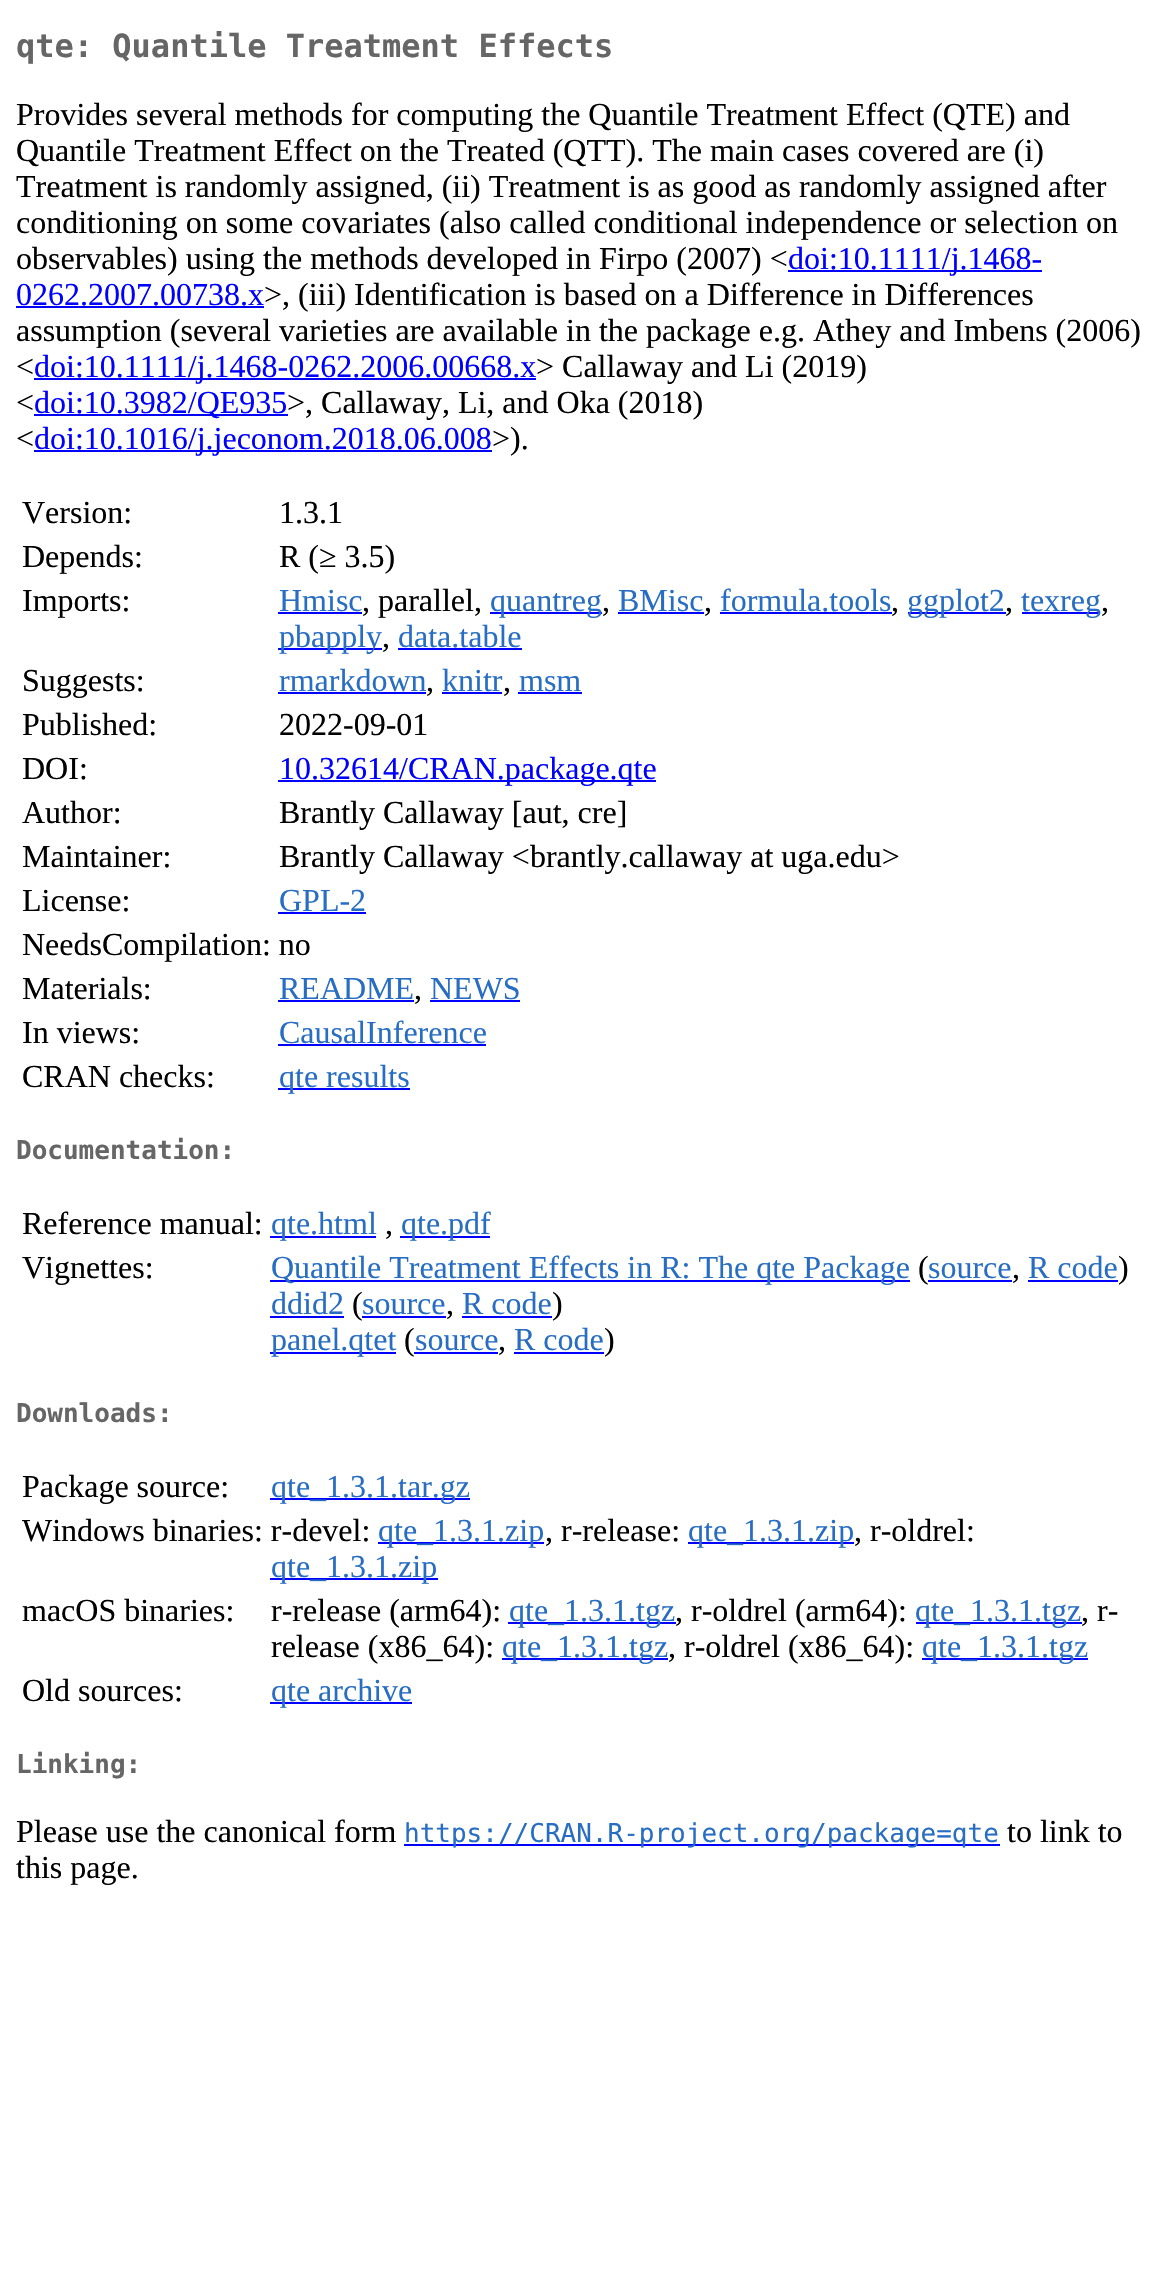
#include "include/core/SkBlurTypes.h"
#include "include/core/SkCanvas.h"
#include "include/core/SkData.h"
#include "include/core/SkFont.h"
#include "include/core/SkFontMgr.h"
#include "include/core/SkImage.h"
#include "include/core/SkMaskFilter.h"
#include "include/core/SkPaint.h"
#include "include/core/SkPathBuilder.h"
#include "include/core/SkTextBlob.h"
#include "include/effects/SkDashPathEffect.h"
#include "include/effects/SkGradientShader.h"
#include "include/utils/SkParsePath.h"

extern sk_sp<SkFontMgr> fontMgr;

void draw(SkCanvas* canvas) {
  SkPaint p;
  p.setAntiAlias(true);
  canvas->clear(SK_ColorWHITE);
  p.setColor(SkColorSetRGB(0, 0, 255));
  canvas->drawRect(SkRect::MakeLTRB(788, 270, 1042, 272), p);
  canvas->drawRect(SkRect::MakeLTRB(16, 306, 264, 308), p);
  canvas->drawRect(SkRect::MakeLTRB(34, 378, 536, 380), p);
  canvas->drawRect(SkRect::MakeLTRB(34, 414, 288, 416), p);
  canvas->drawRect(SkRect::MakeLTRB(34, 450, 492, 452), p);
  canvas->drawRect(SkRect::MakeLTRB(278, 612, 362, 614), p);
  canvas->drawRect(SkRect::MakeLTRB(490, 612, 602, 614), p);
  canvas->drawRect(SkRect::MakeLTRB(618, 612, 704, 614), p);
  canvas->drawRect(SkRect::MakeLTRB(720, 612, 892, 614), p);
  canvas->drawRect(SkRect::MakeLTRB(908, 612, 1006, 614), p);
  canvas->drawRect(SkRect::MakeLTRB(1022, 612, 1100, 614), p);
  canvas->drawRect(SkRect::MakeLTRB(278, 648, 382, 650), p);
  canvas->drawRect(SkRect::MakeLTRB(398, 648, 522, 650), p);
  canvas->drawRect(SkRect::MakeLTRB(278, 692, 426, 694), p);
  canvas->drawRect(SkRect::MakeLTRB(442, 692, 502, 694), p);
  canvas->drawRect(SkRect::MakeLTRB(518, 692, 582, 694), p);
  canvas->drawRect(SkRect::MakeLTRB(278, 780, 656, 782), p);
  canvas->drawRect(SkRect::MakeLTRB(278, 912, 366, 914), p);
  canvas->drawRect(SkRect::MakeLTRB(278, 1000, 414, 1002), p);
  canvas->drawRect(SkRect::MakeLTRB(430, 1000, 520, 1002), p);
  canvas->drawRect(SkRect::MakeLTRB(278, 1044, 486, 1046), p);
  canvas->drawRect(SkRect::MakeLTRB(278, 1088, 410, 1090), p);
  canvas->drawRect(SkRect::MakeLTRB(270, 1236, 376, 1238), p);
  canvas->drawRect(SkRect::MakeLTRB(400, 1236, 490, 1238), p);
  canvas->drawRect(SkRect::MakeLTRB(270, 1280, 910, 1282), p);
  canvas->drawRect(SkRect::MakeLTRB(928, 1280, 1012, 1282), p);
  canvas->drawRect(SkRect::MakeLTRB(1028, 1280, 1118, 1282), p);
  canvas->drawRect(SkRect::MakeLTRB(270, 1316, 344, 1318), p);
  canvas->drawRect(SkRect::MakeLTRB(362, 1316, 446, 1318), p);
  canvas->drawRect(SkRect::MakeLTRB(462, 1316, 552, 1318), p);
  canvas->drawRect(SkRect::MakeLTRB(270, 1352, 396, 1354), p);
  canvas->drawRect(SkRect::MakeLTRB(414, 1352, 498, 1354), p);
  canvas->drawRect(SkRect::MakeLTRB(514, 1352, 604, 1354), p);
  canvas->drawRect(SkRect::MakeLTRB(270, 1498, 470, 1500), p);
  canvas->drawRect(SkRect::MakeLTRB(378, 1542, 544, 1544), p);
  canvas->drawRect(SkRect::MakeLTRB(688, 1542, 854, 1544), p);
  canvas->drawRect(SkRect::MakeLTRB(270, 1578, 438, 1580), p);
  canvas->drawRect(SkRect::MakeLTRB(508, 1622, 676, 1624), p);
  canvas->drawRect(SkRect::MakeLTRB(916, 1622, 1082, 1624), p);
  canvas->drawRect(SkRect::MakeLTRB(502, 1658, 668, 1660), p);
  canvas->drawRect(SkRect::MakeLTRB(922, 1658, 1088, 1660), p);
  canvas->drawRect(SkRect::MakeLTRB(270, 1702, 412, 1704), p);
  canvas->drawRect(SkRect::MakeLTRB(404, 1844, 1000, 1846), p);
  SkFont font1(fontMgr->matchFamilyStyle("DejaVu Sans Mono", SkFontStyle::Bold()), 32);
  font1.setSubpixel(true);
  p.setColor(SkColorSetRGB(102, 102, 102));
  canvas->drawString("qte: Quantile Treatment Effects", 16, 57, font1, p);
  SkFont font2(fontMgr->matchFamilyStyle("Liberation Serif", SkFontStyle::Normal()), 32);
  font2.setSubpixel(true);
  p.setColor(SK_ColorBLACK);
  canvas->drawString("Provides several methods for computing the Quantile Treatment Effect (QTE) and", 16, 125, font2, p);
  canvas->drawString("Quantile Treatment Effect on the Treated (QTT). The main cases covered are (i)", 16, 161, font2, p);
  canvas->drawString("Treatment is randomly assigned, (ii) Treatment is as good as randomly assigned after", 16, 197, font2, p);
  canvas->drawString("conditioning on some covariates (also called conditional independence or selection on", 16, 233, font2, p);
  canvas->drawString("observables) using the methods developed in Firpo (2007) <", 16, 269, font2, p);
  p.setColor(SkColorSetRGB(0, 0, 255));
  canvas->drawString("doi:10.1111/j.1468-", 788, 269, font2, p);
  canvas->drawString("0262.2007.00738.x", 16, 305, font2, p);
  p.setColor(SK_ColorBLACK);
  canvas->drawString(">, (iii) Identification is based on a Difference in Differences", 264, 305, font2, p);
  canvas->drawString("assumption (several varieties are available in the package e.g. Athey and Imbens (2006)", 16, 341, font2, p);
  canvas->drawString("<", 16, 377, font2, p);
  p.setColor(SkColorSetRGB(0, 0, 255));
  canvas->drawString("doi:10.1111/j.1468-0262.2006.00668.x", 34, 377, font2, p);
  p.setColor(SK_ColorBLACK);
  canvas->drawString("> Callaway and Li (2019)", 536, 377, font2, p);
  canvas->drawString("<", 16, 413, font2, p);
  p.setColor(SkColorSetRGB(0, 0, 255));
  canvas->drawString("doi:10.3982/QE935", 34, 413, font2, p);
  p.setColor(SK_ColorBLACK);
  canvas->drawString(">, Callaway, Li, and Oka (2018)", 287, 413, font2, p);
  canvas->drawString("<", 16, 449, font2, p);
  p.setColor(SkColorSetRGB(0, 0, 255));
  canvas->drawString("doi:10.1016/j.jeconom.2018.06.008", 34, 449, font2, p);
  p.setColor(SK_ColorBLACK);
  canvas->drawString(">).", 492, 449, font2, p);
  canvas->drawString("Version:", 22, 523, font2, p);
  canvas->drawString("1.3.1", 279, 523, font2, p);
  canvas->drawString("Depends:", 22, 567, font2, p);
  canvas->drawString("R (≥ 3.5)", 279, 567, font2, p);
  canvas->drawString("Imports:", 22, 611, font2, p);
  p.setColor(SkColorSetRGB(39, 109, 195));
  canvas->drawString("Hmisc", 279, 611, font2, p);
  p.setColor(SK_ColorBLACK);
  canvas->drawString(", parallel,", 362, 611, font2, p);
  p.setColor(SkColorSetRGB(39, 109, 195));
  canvas->drawString("quantreg", 490, 611, font2, p);
  p.setColor(SK_ColorBLACK);
  canvas->drawString(",", 602, 611, font2, p);
  p.setColor(SkColorSetRGB(39, 109, 195));
  canvas->drawString("BMisc", 618, 611, font2, p);
  p.setColor(SK_ColorBLACK);
  canvas->drawString(",", 704, 611, font2, p);
  p.setColor(SkColorSetRGB(39, 109, 195));
  canvas->drawString("formula.tools", 720, 611, font2, p);
  p.setColor(SK_ColorBLACK);
  canvas->drawString(",", 891, 611, font2, p);
  p.setColor(SkColorSetRGB(39, 109, 195));
  canvas->drawString("ggplot2", 907, 611, font2, p);
  p.setColor(SK_ColorBLACK);
  canvas->drawString(",", 1005, 611, font2, p);
  p.setColor(SkColorSetRGB(39, 109, 195));
  canvas->drawString("texreg", 1021, 611, font2, p);
  p.setColor(SK_ColorBLACK);
  canvas->drawString(",", 1101, 611, font2, p);
  p.setColor(SkColorSetRGB(39, 109, 195));
  canvas->drawString("pbapply", 279, 647, font2, p);
  p.setColor(SK_ColorBLACK);
  canvas->drawString(",", 382, 647, font2, p);
  p.setColor(SkColorSetRGB(39, 109, 195));
  canvas->drawString("data.table", 398, 647, font2, p);
  p.setColor(SK_ColorBLACK);
  canvas->drawString("Suggests:", 22, 691, font2, p);
  p.setColor(SkColorSetRGB(39, 109, 195));
  canvas->drawString("rmarkdown", 279, 691, font2, p);
  p.setColor(SK_ColorBLACK);
  canvas->drawString(",", 426, 691, font2, p);
  p.setColor(SkColorSetRGB(39, 109, 195));
  canvas->drawString("knitr", 442, 691, font2, p);
  p.setColor(SK_ColorBLACK);
  canvas->drawString(",", 503, 691, font2, p);
  p.setColor(SkColorSetRGB(39, 109, 195));
  canvas->drawString("msm", 519, 691, font2, p);
  p.setColor(SK_ColorBLACK);
  canvas->drawString("Published:", 22, 735, font2, p);
  canvas->drawString("2022-09-01", 279, 735, font2, p);
  canvas->drawString("DOI:", 22, 779, font2, p);
  p.setColor(SkColorSetRGB(0, 0, 255));
  canvas->drawString("10.32614/CRAN.package.qte", 279, 779, font2, p);
  p.setColor(SK_ColorBLACK);
  canvas->drawString("Author:", 22, 823, font2, p);
  canvas->drawString("Brantly Callaway [aut, cre]", 279, 823, font2, p);
  canvas->drawString("Maintainer:", 22, 867, font2, p);
  canvas->drawString("Brantly Callaway <brantly.callaway at uga.edu>", 279, 867, font2, p);
  canvas->drawString("License:", 22, 911, font2, p);
  p.setColor(SkColorSetRGB(39, 109, 195));
  canvas->drawString("GPL-2", 279, 911, font2, p);
  p.setColor(SK_ColorBLACK);
  canvas->drawString("NeedsCompilation: no", 22, 955, font2, p);
  canvas->drawString("Materials:", 22, 999, font2, p);
  p.setColor(SkColorSetRGB(39, 109, 195));
  canvas->drawString("README", 279, 999, font2, p);
  p.setColor(SK_ColorBLACK);
  canvas->drawString(",", 414, 999, font2, p);
  p.setColor(SkColorSetRGB(39, 109, 195));
  canvas->drawString("NEWS", 430, 999, font2, p);
  p.setColor(SK_ColorBLACK);
  canvas->drawString("In views:", 22, 1043, font2, p);
  p.setColor(SkColorSetRGB(39, 109, 195));
  canvas->drawString("CausalInference", 279, 1043, font2, p);
  p.setColor(SK_ColorBLACK);
  canvas->drawString("CRAN checks:", 22, 1087, font2, p);
  p.setColor(SkColorSetRGB(39, 109, 195));
  canvas->drawString("qte results", 279, 1087, font2, p);
  SkFont font3(fontMgr->matchFamilyStyle("DejaVu Sans Mono", SkFontStyle::Bold()), 26);
  font3.setSubpixel(true);
  p.setColor(SkColorSetRGB(102, 102, 102));
  canvas->drawString("Documentation:", 16, 1159, font3, p);
  p.setColor(SK_ColorBLACK);
  canvas->drawString("Reference manual:", 22, 1234, font2, p);
  p.setColor(SkColorSetRGB(39, 109, 195));
  canvas->drawString("qte.html", 271, 1234, font2, p);
  p.setColor(SK_ColorBLACK);
  canvas->drawString(",", 385, 1234, font2, p);
  p.setColor(SkColorSetRGB(39, 109, 195));
  canvas->drawString("qte.pdf", 401, 1234, font2, p);
  p.setColor(SK_ColorBLACK);
  canvas->drawString("Vignettes:", 22, 1278, font2, p);
  p.setColor(SkColorSetRGB(39, 109, 195));
  canvas->drawString("Quantile Treatment Effects in R: The qte Package", 271, 1278, font2, p);
  p.setColor(SK_ColorBLACK);
  canvas->drawString("(", 918, 1278, font2, p);
  p.setColor(SkColorSetRGB(39, 109, 195));
  canvas->drawString("source", 928, 1278, font2, p);
  p.setColor(SK_ColorBLACK);
  canvas->drawString(",", 1012, 1278, font2, p);
  p.setColor(SkColorSetRGB(39, 109, 195));
  canvas->drawString("R code", 1028, 1278, font2, p);
  p.setColor(SK_ColorBLACK);
  canvas->drawString(")", 1118, 1278, font2, p);
  p.setColor(SkColorSetRGB(39, 109, 195));
  canvas->drawString("ddid2", 271, 1314, font2, p);
  p.setColor(SK_ColorBLACK);
  canvas->drawString("(", 352, 1314, font2, p);
  p.setColor(SkColorSetRGB(39, 109, 195));
  canvas->drawString("source", 362, 1314, font2, p);
  p.setColor(SK_ColorBLACK);
  canvas->drawString(",", 446, 1314, font2, p);
  p.setColor(SkColorSetRGB(39, 109, 195));
  canvas->drawString("R code", 462, 1314, font2, p);
  p.setColor(SK_ColorBLACK);
  canvas->drawString(")", 552, 1314, font2, p);
  p.setColor(SkColorSetRGB(39, 109, 195));
  canvas->drawString("panel.qtet", 271, 1350, font2, p);
  p.setColor(SK_ColorBLACK);
  canvas->drawString("(", 404, 1350, font2, p);
  p.setColor(SkColorSetRGB(39, 109, 195));
  canvas->drawString("source", 415, 1350, font2, p);
  p.setColor(SK_ColorBLACK);
  canvas->drawString(",", 498, 1350, font2, p);
  p.setColor(SkColorSetRGB(39, 109, 195));
  canvas->drawString("R code", 514, 1350, font2, p);
  p.setColor(SK_ColorBLACK);
  canvas->drawString(")", 604, 1350, font2, p);
  p.setColor(SkColorSetRGB(102, 102, 102));
  canvas->drawString("Downloads:", 16, 1422, font3, p);
  p.setColor(SK_ColorBLACK);
  canvas->drawString("Package source:", 22, 1497, font2, p);
  p.setColor(SkColorSetRGB(39, 109, 195));
  canvas->drawString("qte_1.3.1.tar.gz", 271, 1497, font2, p);
  p.setColor(SK_ColorBLACK);
  canvas->drawString("Windows binaries: r-devel:", 22, 1541, font2, p);
  p.setColor(SkColorSetRGB(39, 109, 195));
  canvas->drawString("qte_1.3.1.zip", 378, 1541, font2, p);
  p.setColor(SK_ColorBLACK);
  canvas->drawString(", r-release:", 545, 1541, font2, p);
  p.setColor(SkColorSetRGB(39, 109, 195));
  canvas->drawString("qte_1.3.1.zip", 688, 1541, font2, p);
  p.setColor(SK_ColorBLACK);
  canvas->drawString(", r-oldrel:", 854, 1541, font2, p);
  p.setColor(SkColorSetRGB(39, 109, 195));
  canvas->drawString("qte_1.3.1.zip", 271, 1577, font2, p);
  p.setColor(SK_ColorBLACK);
  canvas->drawString("macOS binaries:", 22, 1621, font2, p);
  canvas->drawString("r-release (arm64):", 271, 1621, font2, p);
  p.setColor(SkColorSetRGB(39, 109, 195));
  canvas->drawString("qte_1.3.1.tgz", 509, 1621, font2, p);
  p.setColor(SK_ColorBLACK);
  canvas->drawString(", r-oldrel (arm64):", 675, 1621, font2, p);
  p.setColor(SkColorSetRGB(39, 109, 195));
  canvas->drawString("qte_1.3.1.tgz", 915, 1621, font2, p);
  p.setColor(SK_ColorBLACK);
  canvas->drawString(", r-", 1081, 1621, font2, p);
  canvas->drawString("release (x86_64):", 271, 1657, font2, p);
  p.setColor(SkColorSetRGB(39, 109, 195));
  canvas->drawString("qte_1.3.1.tgz", 502, 1657, font2, p);
  p.setColor(SK_ColorBLACK);
  canvas->drawString(", r-oldrel (x86_64):", 668, 1657, font2, p);
  p.setColor(SkColorSetRGB(39, 109, 195));
  canvas->drawString("qte_1.3.1.tgz", 922, 1657, font2, p);
  p.setColor(SK_ColorBLACK);
  canvas->drawString("Old sources:", 22, 1701, font2, p);
  p.setColor(SkColorSetRGB(39, 109, 195));
  canvas->drawString("qte archive", 271, 1701, font2, p);
  p.setColor(SkColorSetRGB(102, 102, 102));
  canvas->drawString("Linking:", 16, 1773, font3, p);
  p.setColor(SK_ColorBLACK);
  canvas->drawString("Please use the canonical form", 16, 1842, font2, p);
  SkFont font4(fontMgr->matchFamilyStyle("DejaVu Sans Mono", SkFontStyle::Normal()), 26);
  font4.setSubpixel(true);
  p.setColor(SkColorSetRGB(39, 109, 195));
  canvas->drawString("https://CRAN.R-project.org/package=qte", 404, 1842, font4, p);
  p.setColor(SK_ColorBLACK);
  canvas->drawString("to link to", 1007, 1842, font2, p);
  canvas->drawString("this page.", 16, 1878, font2, p);
}
